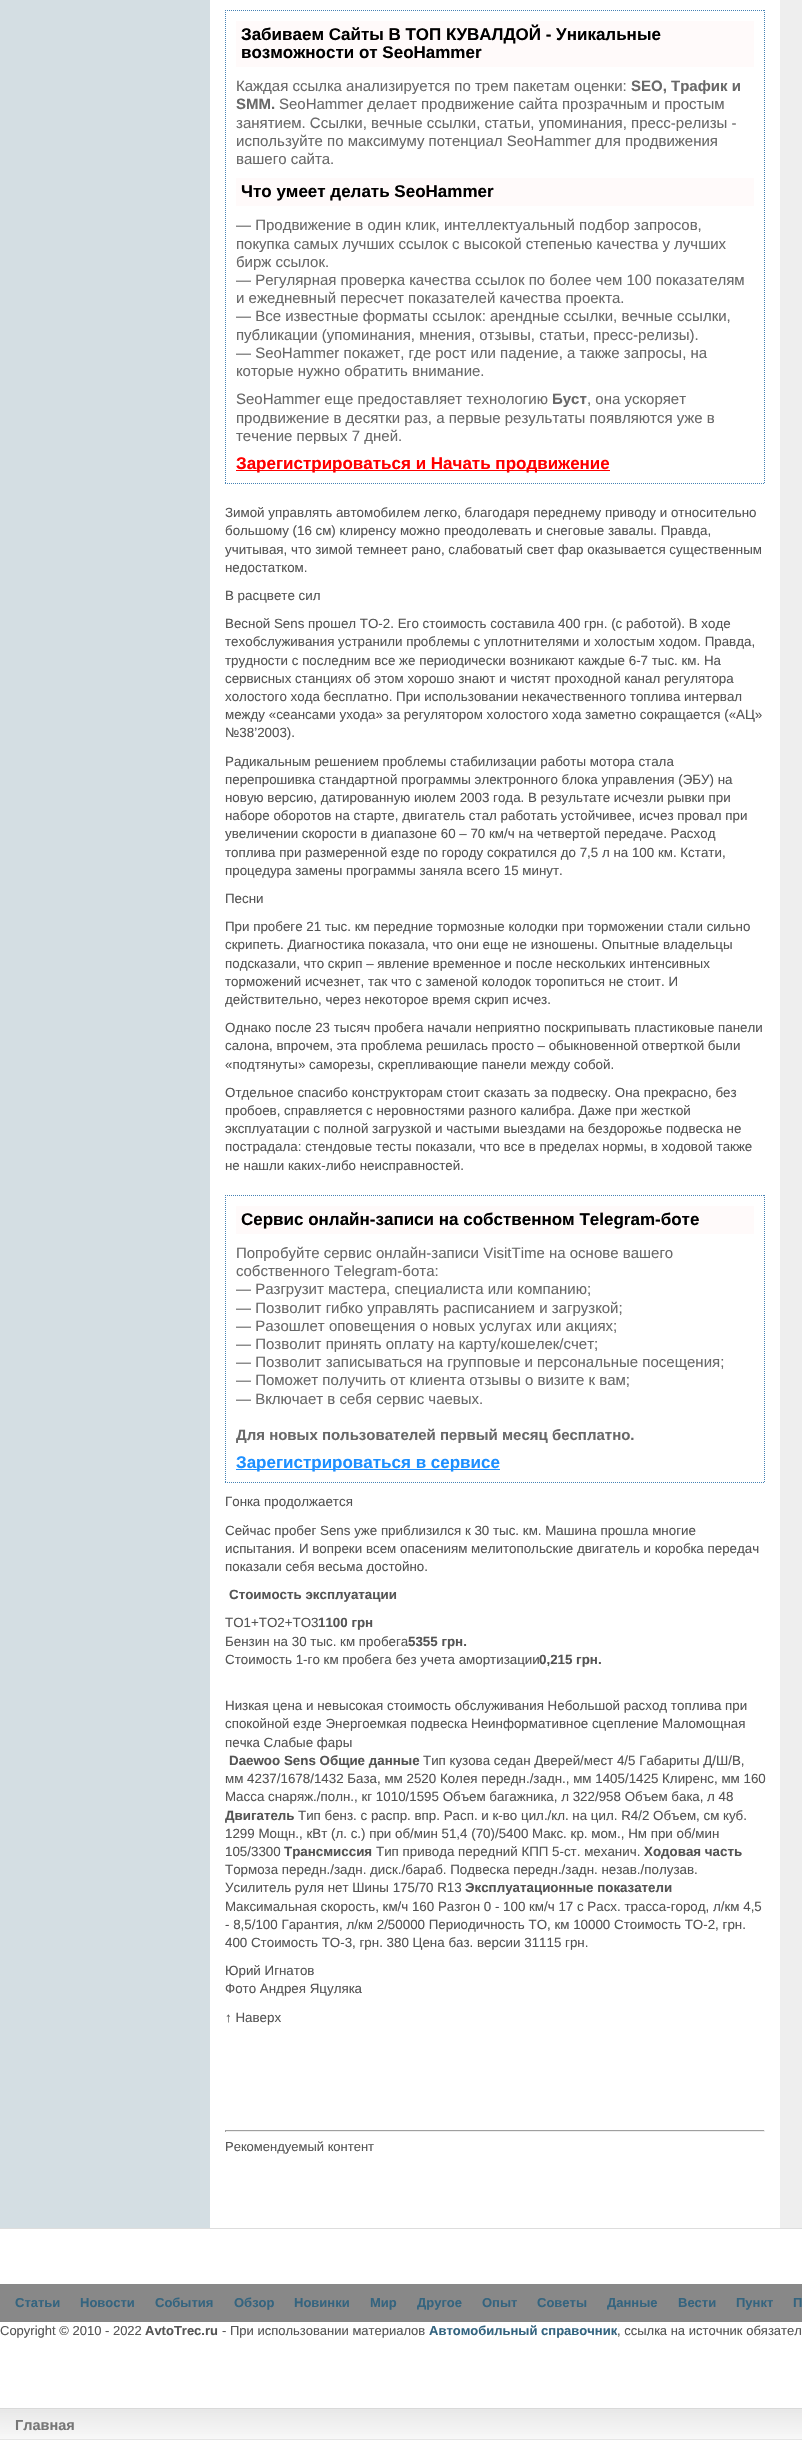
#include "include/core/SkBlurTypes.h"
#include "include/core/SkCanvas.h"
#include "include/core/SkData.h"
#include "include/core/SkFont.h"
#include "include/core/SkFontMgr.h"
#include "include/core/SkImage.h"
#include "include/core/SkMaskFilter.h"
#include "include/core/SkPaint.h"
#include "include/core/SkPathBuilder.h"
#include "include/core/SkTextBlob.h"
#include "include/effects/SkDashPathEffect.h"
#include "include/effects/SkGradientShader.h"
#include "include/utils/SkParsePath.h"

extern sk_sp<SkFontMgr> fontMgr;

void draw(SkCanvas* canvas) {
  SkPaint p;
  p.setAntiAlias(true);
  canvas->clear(SK_ColorWHITE);
  p.setColor(SkColorSetRGB(221, 221, 221));
  canvas->drawRect(SkRect::MakeLTRB(0, 2228, 802, 2229), p);
  p.setColor(SkColorSetRGB(212, 222, 227));
  canvas->drawRect(SkRect::MakeLTRB(0, 0, 210, 2228), p);
  p.setColor(SkColorSetRGB(238, 238, 238));
  canvas->drawRect(SkRect::MakeLTRB(780, 0, 802, 2228), p);
  p.setStyle(SkPaint::kStroke_Style);
  p.setStrokeWidth(1);
  p.setColor(SkColorSetRGB(70, 130, 180));
  p.setPathEffect(SkDashPathEffect::Make({{1, 1}}, 0));
  canvas->drawPath(SkPathBuilder().moveTo(225, 10.5f).lineTo(765, 10.5f).detach(), p);
  p.setPathEffect(nullptr);
  p.setPathEffect(SkDashPathEffect::Make({{1, 1}}, 0));
  canvas->drawPath(SkPathBuilder().moveTo(764.5f, 10).lineTo(764.5f, 484).detach(), p);
  p.setPathEffect(nullptr);
  p.setPathEffect(SkDashPathEffect::Make({{1, 1}}, 0));
  canvas->drawPath(SkPathBuilder().moveTo(225, 483.5f).lineTo(765, 483.5f).detach(), p);
  p.setPathEffect(nullptr);
  p.setPathEffect(SkDashPathEffect::Make({{1, 1}}, 0));
  canvas->drawPath(SkPathBuilder().moveTo(225.5f, 10).lineTo(225.5f, 484).detach(), p);
  p.setPathEffect(nullptr);
  p.setStyle(SkPaint::kFill_Style);
  p.setColor(SkColorSetRGB(255, 250, 250));
  canvas->drawRect(SkRect::MakeLTRB(236, 21, 754, 67), p);
  canvas->drawRect(SkRect::MakeLTRB(236, 178, 754, 206), p);
  p.setColor(SkColorSetRGB(255, 0, 0));
  canvas->drawRect(SkRect::MakeLTRB(236, 470, 610, 471), p);
  p.setStyle(SkPaint::kStroke_Style);
  p.setColor(SkColorSetRGB(70, 130, 180));
  p.setPathEffect(SkDashPathEffect::Make({{1, 1}}, 0));
  canvas->drawPath(SkPathBuilder().moveTo(225, 1195.5f).lineTo(765, 1195.5f).detach(), p);
  p.setPathEffect(nullptr);
  p.setPathEffect(SkDashPathEffect::Make({{1, 1}}, 0));
  canvas->drawPath(SkPathBuilder().moveTo(764.5f, 1195).lineTo(764.5f, 1483).detach(), p);
  p.setPathEffect(nullptr);
  p.setPathEffect(SkDashPathEffect::Make({{1, 1}}, 0));
  canvas->drawPath(SkPathBuilder().moveTo(225, 1482.5f).lineTo(765, 1482.5f).detach(), p);
  p.setPathEffect(nullptr);
  p.setPathEffect(SkDashPathEffect::Make({{1, 1}}, 0));
  canvas->drawPath(SkPathBuilder().moveTo(225.5f, 1195).lineTo(225.5f, 1483).detach(), p);
  p.setPathEffect(nullptr);
  p.setStyle(SkPaint::kFill_Style);
  p.setColor(SkColorSetRGB(255, 250, 250));
  canvas->drawRect(SkRect::MakeLTRB(236, 1206, 754, 1234), p);
  p.setColor(SkColorSetRGB(30, 144, 255));
  canvas->drawRect(SkRect::MakeLTRB(236, 1469, 500, 1470), p);
  p.setColor(SkColorSetRGB(159, 159, 159));
  canvas->drawRect(SkRect::MakeLTRB(225, 2130, 765, 2131), p);
  p.setColor(SkColorSetRGB(238, 238, 238));
  canvas->drawRect(SkRect::MakeLTRB(764, 2130, 765, 2132), p);
  canvas->drawRect(SkRect::MakeLTRB(225, 2131, 765, 2132), p);
  p.setColor(SkColorSetRGB(159, 159, 159));
  canvas->drawRect(SkRect::MakeLTRB(225, 2130, 226, 2132), p);
  p.setColor(SkColorSetRGB(136, 136, 136));
  canvas->drawRect(SkRect::MakeLTRB(0, 2284, 802, 2322), p);
  canvas->drawImageRect(SkImages::DeferredFromEncodedData(SkData::MakeFromFileName("images/1.png")), SkRect::MakeLTRB(0, 2409, 802, 2439), SkSamplingOptions());
  p.setColor(SkColorSetRGB(217, 217, 217));
  canvas->drawRect(SkRect::MakeLTRB(0, 2408, 802, 2409), p);
  p.setColor(SkColorSetRGB(230, 230, 230));
  canvas->drawRect(SkRect::MakeLTRB(0, 2439, 802, 2440), p);
  SkFont font1(fontMgr->matchFamilyStyle("Liberation Sans", SkFontStyle::Bold()), 17);
  font1.setSubpixel(true);
  p.setColor(SK_ColorBLACK);
  canvas->drawString("Забиваем Сайты В ТОП КУВАЛДОЙ - Уникальные", 241, 40, font1, p);
  canvas->drawString("возможности от SeoHammer", 241, 58, font1, p);
  SkFont font2(fontMgr->matchFamilyStyle("Liberation Sans", SkFontStyle::Normal()), 15);
  font2.setSubpixel(true);
  p.setColor(SkColorSetRGB(105, 105, 105));
  canvas->drawString("Каждая ссылка анализируется по трем пакетам оценки:", 236, 91, font2, p);
  SkFont font3(fontMgr->matchFamilyStyle("Liberation Sans", SkFontStyle::Bold()), 15);
  font3.setSubpixel(true);
  canvas->drawString("SEO, Трафик и", 631, 91, font3, p);
  canvas->drawString("SMM.", 236, 109, font3, p);
  canvas->drawString("SeoHammer делает продвижение сайта прозрачным и простым", 279, 109, font2, p);
  canvas->drawString("занятием. Ссылки, вечные ссылки, статьи, упоминания, пресс-релизы -", 236, 128, font2, p);
  canvas->drawString("используйте по максимуму потенциал SeoHammer для продвижения", 236, 146, font2, p);
  canvas->drawString("вашего сайта.", 236, 164, font2, p);
  p.setColor(SK_ColorBLACK);
  canvas->drawString("Что умеет делать SeoHammer", 241, 197, font1, p);
  p.setColor(SkColorSetRGB(105, 105, 105));
  canvas->drawString("— Продвижение в один клик, интеллектуальный подбор запросов,", 236, 230, font2, p);
  canvas->drawString("покупка самых лучших ссылок с высокой степенью качества у лучших", 236, 249, font2, p);
  canvas->drawString("бирж ссылок.", 236, 267, font2, p);
  canvas->drawString("— Регулярная проверка качества ссылок по более чем 100 показателям", 236, 285, font2, p);
  canvas->drawString("и ежедневный пересчет показателей качества проекта.", 236, 303, font2, p);
  canvas->drawString("— Все известные форматы ссылок: арендные ссылки, вечные ссылки,", 236, 321, font2, p);
  canvas->drawString("публикации (упоминания, мнения, отзывы, статьи, пресс-релизы).", 236, 340, font2, p);
  canvas->drawString("— SeoHammer покажет, где рост или падение, а также запросы, на", 236, 358, font2, p);
  canvas->drawString("которые нужно обратить внимание.", 236, 376, font2, p);
  canvas->drawString("SeoHammer еще предоставляет технологию", 236, 404, font2, p);
  canvas->drawString("Буст", 552, 404, font3, p);
  canvas->drawString(", она ускоряет", 587, 404, font2, p);
  canvas->drawString("продвижение в десятки раз, а первые результаты появляются уже в", 236, 423, font2, p);
  canvas->drawString("течение первых 7 дней.", 236, 441, font2, p);
  p.setColor(SkColorSetRGB(255, 0, 0));
  canvas->drawString("Зарегистрироваться и Начать продвижение", 236, 469, font1, p);
  SkFont font4(fontMgr->matchFamilyStyle("Liberation Sans", SkFontStyle::Normal()), 13.35f);
  font4.setSubpixel(true);
  p.setColor(SkColorSetRGB(85, 85, 85));
  canvas->drawString("Зимой управлять автомобилем легко, благодаря переднему приводу и относительно", 225, 517, font4, p);
  canvas->drawString("большому (16 см) клиренсу можно преодолевать и снеговые завалы. Правда,", 225, 535, font4, p);
  canvas->drawString("учитывая, что зимой темнеет рано, слабоватый свет фар оказывается существенным", 225, 554, font4, p);
  canvas->drawString("недостатком.", 225, 572, font4, p);
  canvas->drawString("В расцвете сил", 225, 600, font4, p);
  canvas->drawString("Весной Sens прошел ТО-2. Его стоимость составила 400 грн. (с работой). В ходе", 225, 628, font4, p);
  canvas->drawString("техобслуживания устранили проблемы с уплотнителями и холостым ходом. Правда,", 225, 646, font4, p);
  canvas->drawString("трудности с последним все же периодически возникают каждые 6-7 тыс. км. На", 225, 665, font4, p);
  canvas->drawString("сервисных станциях об этом хорошо знают и чистят проходной канал регулятора", 225, 683, font4, p);
  canvas->drawString("холостого хода бесплатно. При использовании некачественного топлива интервал", 225, 701, font4, p);
  canvas->drawString("между «сеансами ухода» за регулятором холостого хода заметно сокращается («АЦ»", 225, 719, font4, p);
  canvas->drawString("№38’2003).", 225, 737, font4, p);
  canvas->drawString("Радикальным решением проблемы стабилизации работы мотора стала", 225, 766, font4, p);
  canvas->drawString("перепрошивка стандартной программы электронного блока управления (ЭБУ) на", 225, 784, font4, p);
  canvas->drawString("новую версию, датированную июлем 2003 года. В результате исчезли рывки при", 225, 802, font4, p);
  canvas->drawString("наборе оборотов на старте, двигатель стал работать устойчивее, исчез провал при", 225, 820, font4, p);
  canvas->drawString("увеличении скорости в диапазоне 60 – 70 км/ч на четвертой передаче. Расход", 225, 838, font4, p);
  canvas->drawString("топлива при размеренной езде по городу сократился до 7,5 л на 100 км. Кстати,", 225, 857, font4, p);
  canvas->drawString("процедура замены программы заняла всего 15 минут.", 225, 875, font4, p);
  canvas->drawString("Песни", 225, 903, font4, p);
  canvas->drawString("При пробеге 21 тыс. км передние тормозные колодки при торможении стали сильно", 225, 931, font4, p);
  canvas->drawString("скрипеть. Диагностика показала, что они еще не изношены. Опытные владельцы", 225, 949, font4, p);
  canvas->drawString("подсказали, что скрип – явление временное и после нескольких интенсивных", 225, 968, font4, p);
  canvas->drawString("торможений исчезнет, так что с заменой колодок торопиться не стоит. И", 225, 986, font4, p);
  canvas->drawString("действительно, через некоторое время скрип исчез.", 225, 1004, font4, p);
  canvas->drawString("Однако после 23 тысяч пробега начали неприятно поскрипывать пластиковые панели", 225, 1032, font4, p);
  canvas->drawString("салона, впрочем, эта проблема решилась просто – обыкновенной отверткой были", 225, 1050, font4, p);
  canvas->drawString("«подтянуты» саморезы, скрепливающие панели между собой.", 225, 1069, font4, p);
  canvas->drawString("Отдельное спасибо конструкторам стоит сказать за подвеску. Она прекрасно, без", 225, 1097, font4, p);
  canvas->drawString("пробоев, справляется с неровностями разного калибра. Даже при жесткой", 225, 1115, font4, p);
  canvas->drawString("эксплуатации с полной загрузкой и частыми выездами на бездорожье подвеска не", 225, 1133, font4, p);
  canvas->drawString("пострадала: стендовые тесты показали, что все в пределах нормы, в ходовой также", 225, 1151, font4, p);
  canvas->drawString("не нашли каких-либо неисправностей.", 225, 1170, font4, p);
  p.setColor(SK_ColorBLACK);
  canvas->drawString("Сервис онлайн-записи на собственном Telegram-боте", 241, 1225, font1, p);
  p.setColor(SkColorSetRGB(105, 105, 105));
  canvas->drawString("Попробуйте сервис онлайн-записи VisitTime на основе вашего", 236, 1258, font2, p);
  canvas->drawString("собственного Telegram-бота:", 236, 1276, font2, p);
  canvas->drawString("— Разгрузит мастера, специалиста или компанию;", 236, 1294, font2, p);
  canvas->drawString("— Позволит гибко управлять расписанием и загрузкой;", 236, 1313, font2, p);
  canvas->drawString("— Разошлет оповещения о новых услугах или акциях;", 236, 1331, font2, p);
  canvas->drawString("— Позволит принять оплату на карту/кошелек/счет;", 236, 1349, font2, p);
  canvas->drawString("— Позволит записываться на групповые и персональные посещения;", 236, 1367, font2, p);
  canvas->drawString("— Поможет получить от клиента отзывы о визите к вам;", 236, 1385, font2, p);
  canvas->drawString("— Включает в себя сервис чаевых.", 236, 1404, font2, p);
  canvas->drawString("Для новых пользователей первый месяц бесплатно.", 236, 1440, font3, p);
  p.setColor(SkColorSetRGB(30, 144, 255));
  canvas->drawString("Зарегистрироваться в сервисе", 236, 1468, font1, p);
  p.setColor(SkColorSetRGB(85, 85, 85));
  canvas->drawString("Гонка продолжается", 225, 1506, font4, p);
  canvas->drawString("Сейчас пробег Sens уже приблизился к 30 тыс. км. Машина прошла многие", 225, 1535, font4, p);
  canvas->drawString("испытания. И вопреки всем опасениям мелитопольские двигатель и коробка передач", 225, 1553, font4, p);
  canvas->drawString("показали себя весьма достойно.", 225, 1571, font4, p);
  SkFont font5(fontMgr->matchFamilyStyle("Liberation Sans", SkFontStyle::Bold()), 13.35f);
  font5.setSubpixel(true);
  canvas->drawString("Стоимость эксплуатации", 229, 1599, font5, p);
  canvas->drawString("ТО1+ТО2+ТО3", 225, 1627, font4, p);
  canvas->drawString("1100 грн", 318, 1627, font5, p);
  canvas->drawString("Бензин на 30 тыс. км пробега", 225, 1646, font4, p);
  canvas->drawString("5355 грн.", 408, 1646, font5, p);
  canvas->drawString("Стоимость 1-го км пробега без учета амортизации", 225, 1664, font4, p);
  canvas->drawString("0,215 грн.", 539, 1664, font5, p);
  canvas->drawString("Низкая цена и невысокая стоимость обслуживания Небольшой расход топлива при", 225, 1710, font4, p);
  canvas->drawString("спокойной езде Энергоемкая подвеска Неинформативное сцепление Маломощная", 225, 1728, font4, p);
  canvas->drawString("печка Слабые фары", 225, 1747, font4, p);
  canvas->drawString("Daewoo Sens Общие данные", 229, 1765, font5, p);
  canvas->drawString("Тип кузова седан Дверей/мест 4/5 Габариты Д/Ш/В,", 423, 1765, font4, p);
  canvas->drawString("мм 4237/1678/1432 База, мм 2520 Колея передн./задн., мм 1405/1425 Клиренс, мм 160", 225, 1783, font4, p);
  canvas->drawString("Масса снаряж./полн., кг 1010/1595 Объем багажника, л 322/958 Объем бака, л 48", 225, 1801, font4, p);
  canvas->drawString("Двигатель", 225, 1820, font5, p);
  canvas->drawString("Тип бенз. с распр. впр. Расп. и к-во цил./кл. на цил. R4/2 Объем, см куб.", 298, 1820, font4, p);
  canvas->drawString("1299 Мощн., кВт (л. с.) при об/мин 51,4 (70)/5400 Макс. кр. мом., Hм при об/мин", 225, 1838, font4, p);
  canvas->drawString("105/3300", 225, 1856, font4, p);
  canvas->drawString("Трансмиссия", 284, 1856, font5, p);
  canvas->drawString("Тип привода передний КПП 5-ст. механич.", 376, 1856, font4, p);
  canvas->drawString("Ходовая часть", 644, 1856, font5, p);
  canvas->drawString("Тормоза передн./задн. диск./бараб. Подвеска передн./задн. незав./полузав.", 225, 1874, font4, p);
  canvas->drawString("Усилитель руля нет Шины 175/70 R13", 225, 1892, font4, p);
  canvas->drawString("Эксплуатационные показатели", 465, 1892, font5, p);
  canvas->drawString("Максимальная скорость, км/ч 160 Разгон 0 - 100 км/ч 17 с Расх. трасса-город, л/км 4,5", 225, 1911, font4, p);
  canvas->drawString("- 8,5/100 Гарантия, л/км 2/50000 Периодичность ТО, км 10000 Стоимость ТО-2, грн.", 225, 1929, font4, p);
  canvas->drawString("400 Стоимость ТО-3, грн. 380 Цена баз. версии 31115 грн.", 225, 1947, font4, p);
  canvas->drawString("Юрий Игнатов", 225, 1975, font4, p);
  canvas->drawString("Фото Андрея Яцуляка", 225, 1993, font4, p);
  canvas->drawString("↑ Наверх", 225, 2022, font4, p);
  SkFont font6(fontMgr->matchFamilyStyle("Liberation Sans", SkFontStyle::Normal()), 13);
  font6.setSubpixel(true);
  canvas->drawString("Рекомендуемый контент", 225, 2151, font6, p);
  SkFont font7(fontMgr->matchFamilyStyle("Liberation Sans", SkFontStyle::Bold()), 13);
  font7.setSubpixel(true);
  p.setColor(SkColorSetRGB(52, 100, 127));
  canvas->drawString("Статьи", 15, 2307, font7, p);
  canvas->drawString("Новости", 80, 2307, font7, p);
  canvas->drawString("События", 155, 2307, font7, p);
  canvas->drawString("Обзор", 234, 2307, font7, p);
  canvas->drawString("Новинки", 294, 2307, font7, p);
  canvas->drawString("Мир", 370, 2307, font7, p);
  canvas->drawString("Другое", 417, 2307, font7, p);
  canvas->drawString("Опыт", 482, 2307, font7, p);
  canvas->drawString("Советы", 537, 2307, font7, p);
  canvas->drawString("Данные", 607, 2307, font7, p);
  canvas->drawString("Вести", 678, 2307, font7, p);
  canvas->drawString("Пункт", 736, 2307, font7, p);
  canvas->drawString("П", 793, 2307, font7, p);
  p.setColor(SkColorSetRGB(85, 85, 85));
  canvas->drawString("Copyright © 2010 - 2022", 0, 2335, font6, p);
  canvas->drawString("AvtoTrec.ru", 145, 2335, font7, p);
  canvas->drawString("- При использовании материалов", 222, 2335, font6, p);
  p.setColor(SkColorSetRGB(52, 100, 127));
  canvas->drawString("Автомобильный справочник", 429, 2335, font7, p);
  p.setColor(SkColorSetRGB(85, 85, 85));
  canvas->drawString(", ссылка на источник обязател", 617, 2335, font6, p);
  SkFont font8(fontMgr->matchFamilyStyle("Liberation Sans", SkFontStyle::Bold()), 14.5f);
  font8.setSubpixel(true);
  p.setColor(SkColorSetRGB(119, 119, 119));
  canvas->drawString("Главная", 15, 2430, font8, p);
}
